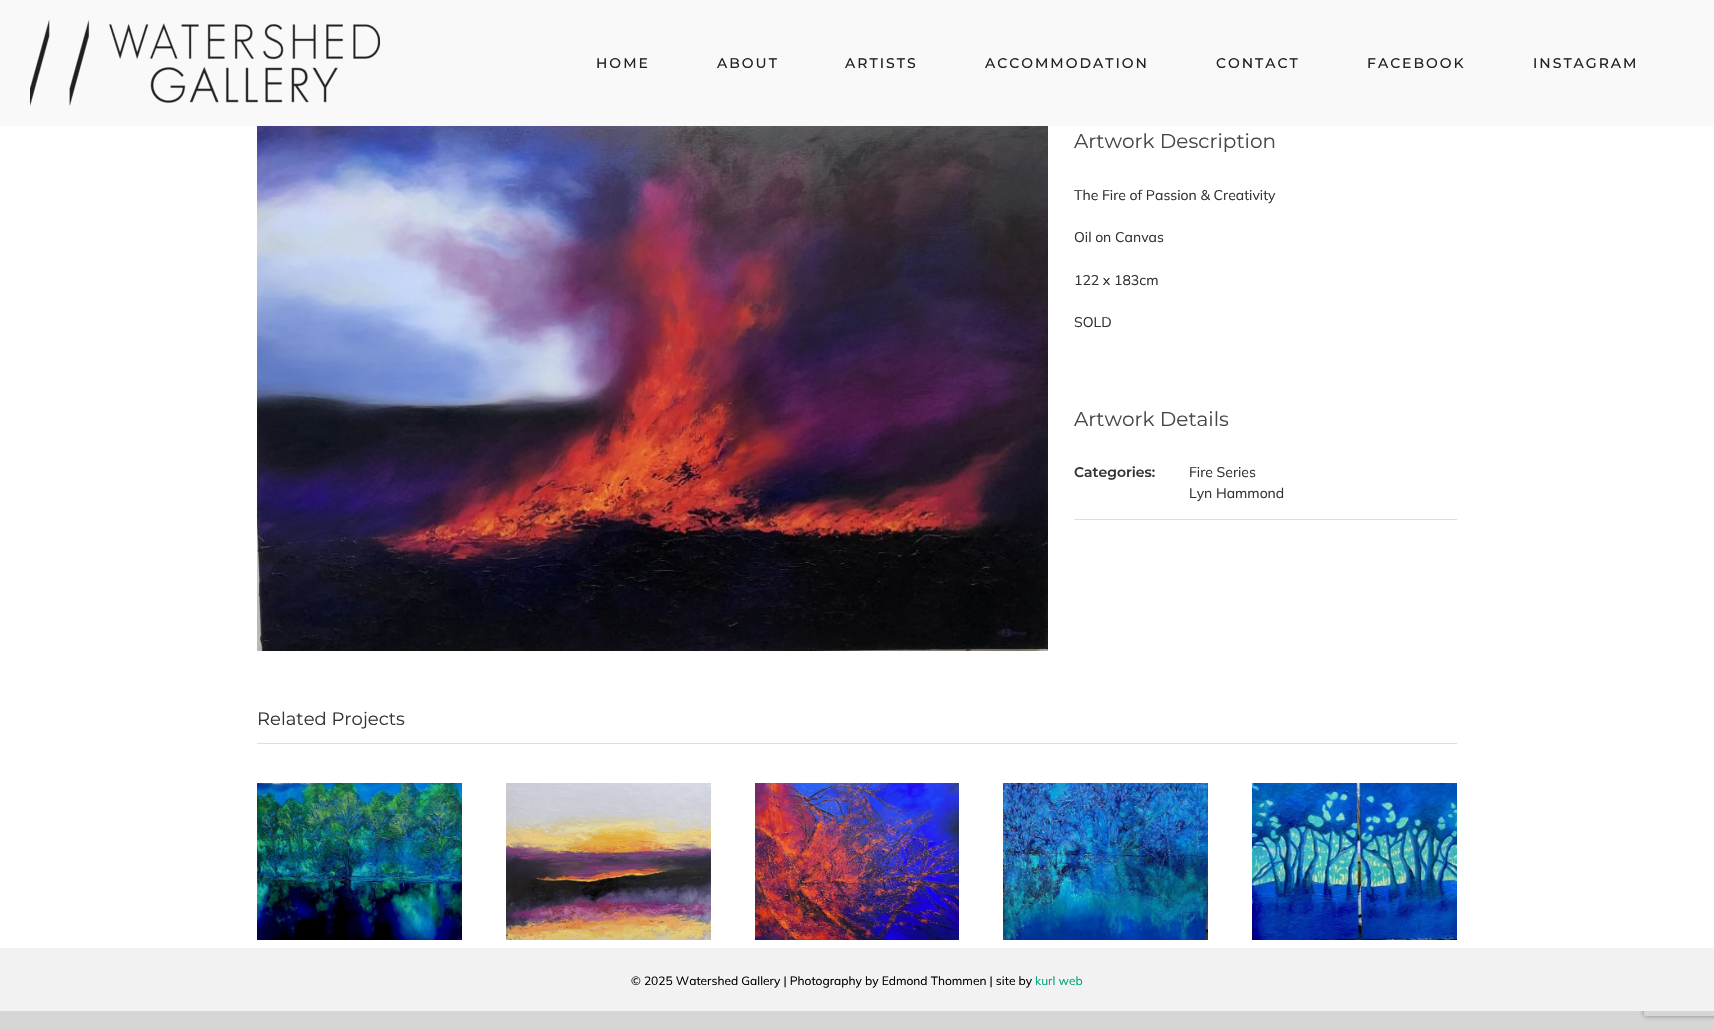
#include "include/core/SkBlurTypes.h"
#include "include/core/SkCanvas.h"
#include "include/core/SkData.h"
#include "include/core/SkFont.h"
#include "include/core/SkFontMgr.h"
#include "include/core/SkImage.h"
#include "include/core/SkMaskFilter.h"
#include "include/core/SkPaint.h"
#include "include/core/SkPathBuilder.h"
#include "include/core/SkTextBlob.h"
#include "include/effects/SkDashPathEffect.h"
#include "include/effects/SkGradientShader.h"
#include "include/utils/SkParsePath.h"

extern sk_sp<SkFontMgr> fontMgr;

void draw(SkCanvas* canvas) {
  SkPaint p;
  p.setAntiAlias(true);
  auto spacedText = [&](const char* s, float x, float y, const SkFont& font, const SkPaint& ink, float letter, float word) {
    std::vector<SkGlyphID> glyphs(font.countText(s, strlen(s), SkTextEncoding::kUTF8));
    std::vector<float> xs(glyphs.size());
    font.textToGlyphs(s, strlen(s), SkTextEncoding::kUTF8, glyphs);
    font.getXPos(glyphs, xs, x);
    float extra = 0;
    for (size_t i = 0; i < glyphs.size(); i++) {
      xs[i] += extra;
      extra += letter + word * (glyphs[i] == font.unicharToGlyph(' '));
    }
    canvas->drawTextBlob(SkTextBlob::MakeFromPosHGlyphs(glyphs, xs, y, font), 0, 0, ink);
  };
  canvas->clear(SkColorSetRGB(215, 214, 214));
  p.setColor(SK_ColorWHITE);
  canvas->drawRect(SkRect::MakeLTRB(0, 126, 1714, 948), p);
  p.setColor(SkColorSetRGB(249, 249, 249));
  canvas->drawRect(SkRect::MakeLTRB(0, 0, 1714, 126), p);
  canvas->drawImageRect(SkImages::DeferredFromEncodedData(SkData::MakeFromFileName("images/1.png")), SkRect::MakeLTRB(30, 20, 380, 106), SkSamplingOptions());
  canvas->drawImageRect(SkImages::DeferredFromEncodedData(SkData::MakeFromFileName("images/2.png")), SkRect::MakeLTRB(257, 126, 1048, 651), SkSamplingOptions());
  p.setColor(SkColorSetRGB(224, 222, 222));
  canvas->drawRect(SkRect::MakeLTRB(1074, 519, 1457, 520), p);
  canvas->drawRect(SkRect::MakeLTRB(257, 743, 1457, 744), p);
  canvas->drawImageRect(SkImages::DeferredFromEncodedData(SkData::MakeFromFileName("images/3.png")), SkRect::MakeLTRB(257, 783, 462, 940), SkSamplingOptions());
  canvas->drawImageRect(SkImages::DeferredFromEncodedData(SkData::MakeFromFileName("images/4.png")), SkRect::MakeLTRB(506, 783, 711, 940), SkSamplingOptions());
  canvas->drawImageRect(SkImages::DeferredFromEncodedData(SkData::MakeFromFileName("images/5.png")), SkRect::MakeLTRB(755, 783, 959, 940), SkSamplingOptions());
  canvas->drawImageRect(SkImages::DeferredFromEncodedData(SkData::MakeFromFileName("images/6.png")), SkRect::MakeLTRB(1003, 783, 1208, 940), SkSamplingOptions());
  canvas->drawImageRect(SkImages::DeferredFromEncodedData(SkData::MakeFromFileName("images/7.png")), SkRect::MakeLTRB(1252, 783, 1457, 940), SkSamplingOptions());
  canvas->save();
  canvas->clipPath(SkPathBuilder(SkPathFillType::kEvenOdd).moveTo(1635, 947).lineTo(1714, 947).lineTo(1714, 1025).lineTo(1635, 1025).close().moveTo(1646, 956).lineTo(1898, 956).cubicTo(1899, 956, 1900, 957, 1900, 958).lineTo(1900, 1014).cubicTo(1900, 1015, 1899, 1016, 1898, 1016).lineTo(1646, 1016).cubicTo(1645, 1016, 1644, 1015, 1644, 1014).lineTo(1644, 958).cubicTo(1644, 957, 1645, 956, 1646, 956).close().detach(), true);
  p.setColor(SkColorSetRGB(128, 128, 128));
  p.setMaskFilter(SkMaskFilter::MakeBlur(kNormal_SkBlurStyle, 2.5f));
  canvas->drawRoundRect(SkRect::MakeLTRB(1644, 956, 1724, 1016), 2, 2, p);
  p.setMaskFilter(nullptr);
  canvas->restore();
  p.setColor(SkColorSetRGB(242, 242, 242));
  canvas->drawRect(SkRect::MakeLTRB(0, 948, 1714, 1011), p);
  SkFont font1(fontMgr->matchFamilyStyle("Montserrat", SkFontStyle(500, SkFontStyle::kNormal_Width, SkFontStyle::kUpright_Slant)), 14);
  font1.setSubpixel(true);
  p.setColor(SkColorSetRGB(35, 35, 35));
  spacedText("HOME", 596, 68, font1, p, 2, 0);
  spacedText("ABOUT", 717, 68, font1, p, 2, 0);
  spacedText("ARTISTS", 845, 68, font1, p, 2, 0);
  spacedText("ACCOMMODATION", 985, 68, font1, p, 2, 0);
  spacedText("CONTACT", 1216, 68, font1, p, 2, 0);
  spacedText("FACEBOOK", 1367, 68, font1, p, 2, 0);
  spacedText("INSTAGRAM", 1533, 68, font1, p, 2, 0);
  SkFont font2(fontMgr->matchFamilyStyle("Montserrat", SkFontStyle::Normal()), 20);
  font2.setSubpixel(true);
  p.setColor(SkColorSetRGB(71, 71, 71));
  canvas->drawString("Artwork Description", 1074, 148, font2, p);
  SkFont font3(fontMgr->matchFamilyStyle("Mulish", SkFontStyle::Normal()), 14);
  font3.setSubpixel(true);
  p.setColor(SkColorSetRGB(51, 51, 51));
  canvas->drawString("The Fire of Passion & Creativity", 1074, 200, font3, p);
  canvas->drawString("Oil on Canvas", 1074, 242, font3, p);
  canvas->drawString("122 x 183cm", 1074, 285, font3, p);
  canvas->drawString("SOLD", 1074, 327, font3, p);
  p.setColor(SkColorSetRGB(71, 71, 71));
  canvas->drawString("Artwork Details", 1074, 426, font2, p);
  SkFont font4(fontMgr->matchFamilyStyle("Montserrat", SkFontStyle(600, SkFontStyle::kNormal_Width, SkFontStyle::kUpright_Slant)), 14);
  font4.setSubpixel(true);
  p.setColor(SkColorSetRGB(51, 51, 51));
  canvas->drawString("Categories:", 1074, 477, font4, p);
  canvas->drawString("Fire Series", 1189, 477, font3, p);
  canvas->drawString("Lyn Hammond", 1189, 498, font3, p);
  SkFont font5(fontMgr->matchFamilyStyle("Montserrat", SkFontStyle::Normal()), 18);
  font5.setSubpixel(true);
  canvas->drawString("Related Projects", 257, 725, font5, p);
  SkFont font6(fontMgr->matchFamilyStyle("Mulish", SkFontStyle::Normal()), 12);
  font6.setSubpixel(true);
  p.setColor(SK_ColorBLACK);
  canvas->drawString("© 2025 Watershed Gallery | Photography by Edmond Thommen | site by", 631, 985, font6, p);
  p.setColor(SkColorSetRGB(0, 162, 122));
  canvas->drawString("kurl web", 1035, 985, font6, p);
}
